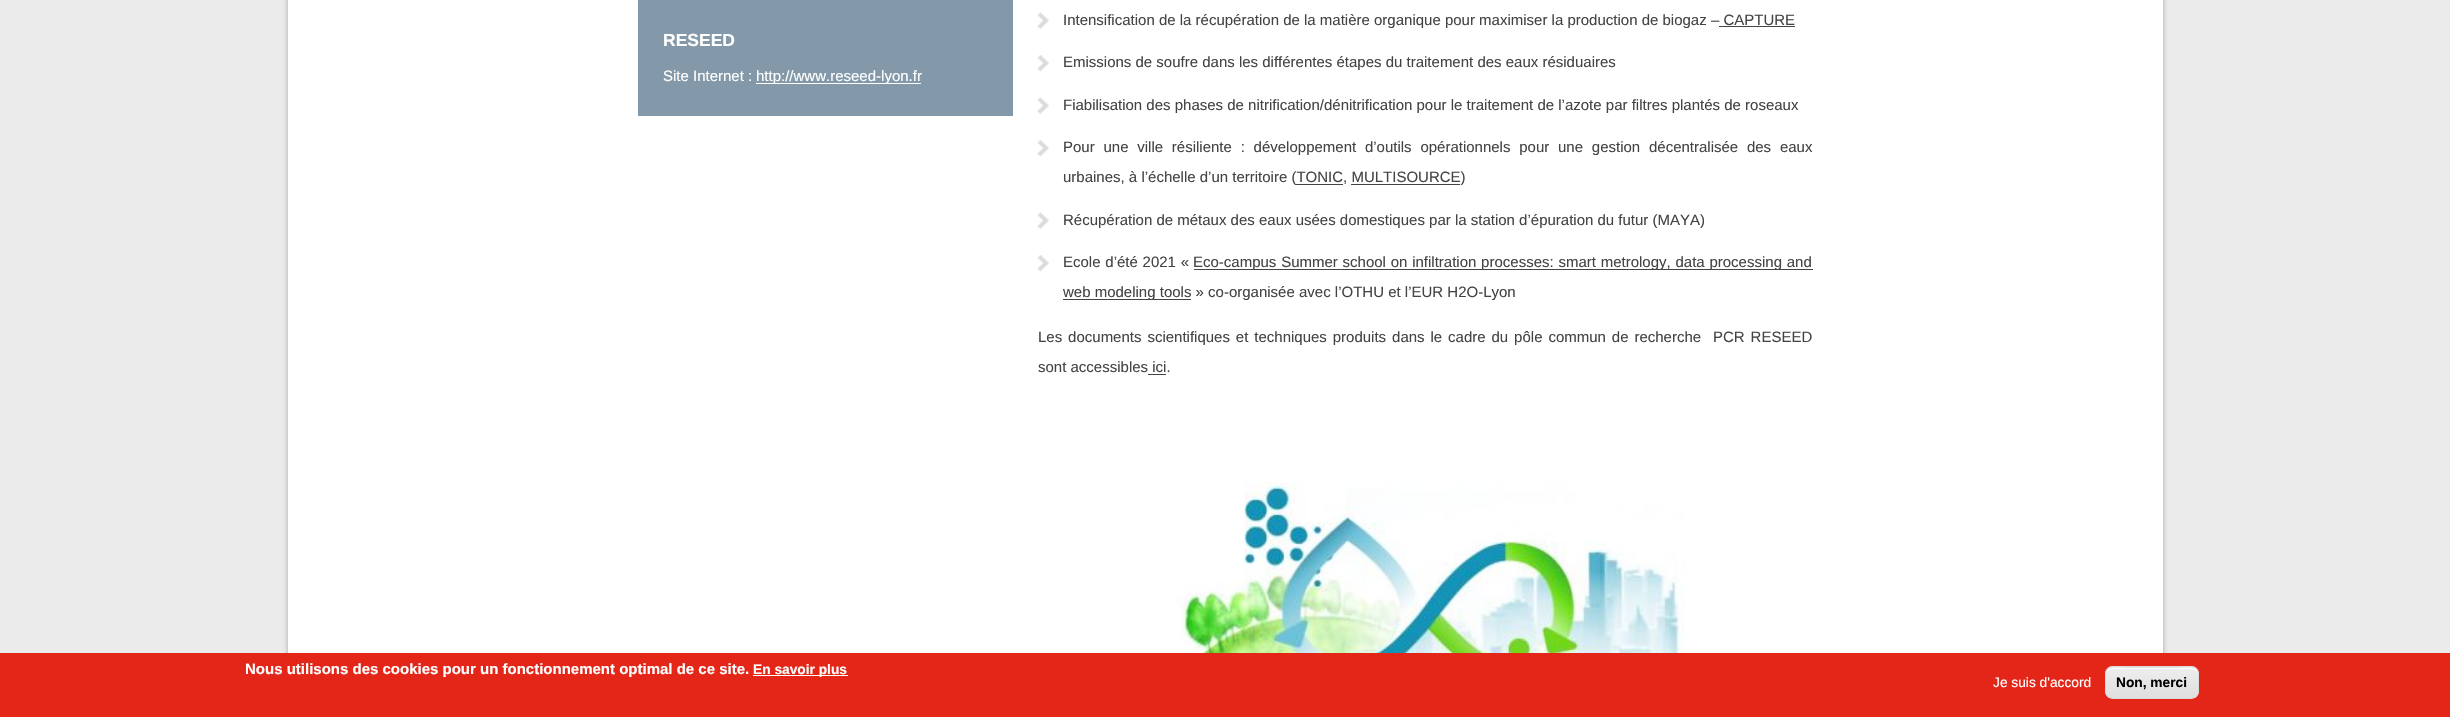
#include "include/core/SkBlurTypes.h"
#include "include/core/SkCanvas.h"
#include "include/core/SkData.h"
#include "include/core/SkFont.h"
#include "include/core/SkFontMgr.h"
#include "include/core/SkImage.h"
#include "include/core/SkMaskFilter.h"
#include "include/core/SkPaint.h"
#include "include/core/SkPathBuilder.h"
#include "include/core/SkTextBlob.h"
#include "include/effects/SkDashPathEffect.h"
#include "include/effects/SkGradientShader.h"
#include "include/utils/SkParsePath.h"

extern sk_sp<SkFontMgr> fontMgr;

void draw(SkCanvas* canvas) {
  SkPaint p;
  p.setAntiAlias(true);
  auto spacedText = [&](const char* s, float x, float y, const SkFont& font, const SkPaint& ink, float letter, float word) {
    std::vector<SkGlyphID> glyphs(font.countText(s, strlen(s), SkTextEncoding::kUTF8));
    std::vector<float> xs(glyphs.size());
    font.textToGlyphs(s, strlen(s), SkTextEncoding::kUTF8, glyphs);
    font.getXPos(glyphs, xs, x);
    float extra = 0;
    for (size_t i = 0; i < glyphs.size(); i++) {
      xs[i] += extra;
      extra += letter + word * (glyphs[i] == font.unicharToGlyph(' '));
    }
    canvas->drawTextBlob(SkTextBlob::MakeFromPosHGlyphs(glyphs, xs, y, font), 0, 0, ink);
  };
  canvas->clear(SkColorSetRGB(235, 235, 235));
  p.setColor(SkColorSetARGB(77, 0, 0, 0));
  p.setMaskFilter(SkMaskFilter::MakeBlur(kNormal_SkBlurStyle, 2.5f));
  canvas->drawRect(SkRect::MakeLTRB(288, -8, 2163, 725), p);
  p.setMaskFilter(nullptr);
  p.setColor(SK_ColorWHITE);
  canvas->drawRect(SkRect::MakeLTRB(288, 0, 2163, 653), p);
  p.setColor(SkColorSetRGB(131, 152, 168));
  canvas->drawRect(SkRect::MakeLTRB(638, 0, 1013, 116), p);
  p.setColor(SK_ColorWHITE);
  canvas->drawRect(SkRect::MakeLTRB(756, 83, 921, 84), p);
  canvas->drawImageRect(SkImages::DeferredFromEncodedData(SkData::MakeFromFileName("images/1.png")), SkRect::MakeLTRB(1037, 12, 1049, 29), SkSamplingOptions());
  p.setColor(SkColorSetRGB(68, 68, 68));
  canvas->drawRect(SkRect::MakeLTRB(1719, 26, 1795, 27), p);
  canvas->drawImageRect(SkImages::DeferredFromEncodedData(SkData::MakeFromFileName("images/2.png")), SkRect::MakeLTRB(1037, 55, 1049, 72), SkSamplingOptions());
  canvas->drawImageRect(SkImages::DeferredFromEncodedData(SkData::MakeFromFileName("images/1.png")), SkRect::MakeLTRB(1037, 97, 1049, 114), SkSamplingOptions());
  canvas->drawImageRect(SkImages::DeferredFromEncodedData(SkData::MakeFromFileName("images/2.png")), SkRect::MakeLTRB(1037, 140, 1049, 157), SkSamplingOptions());
  canvas->drawRect(SkRect::MakeLTRB(1296, 184, 1343, 185), p);
  canvas->drawRect(SkRect::MakeLTRB(1351, 184, 1460, 185), p);
  canvas->drawImageRect(SkImages::DeferredFromEncodedData(SkData::MakeFromFileName("images/1.png")), SkRect::MakeLTRB(1037, 212, 1049, 229), SkSamplingOptions());
  canvas->drawImageRect(SkImages::DeferredFromEncodedData(SkData::MakeFromFileName("images/2.png")), SkRect::MakeLTRB(1037, 255, 1049, 272), SkSamplingOptions());
  canvas->drawRect(SkRect::MakeLTRB(1194, 269, 1813, 270), p);
  canvas->drawRect(SkRect::MakeLTRB(1063, 299, 1191, 300), p);
  canvas->drawRect(SkRect::MakeLTRB(1148, 374, 1166, 375), p);
  canvas->drawImageRect(SkImages::DeferredFromEncodedData(SkData::MakeFromFileName("images/3.png")), SkRect::MakeLTRB(1175, 482, 1685, 653), SkSamplingOptions());
  p.setColor(SkColorSetRGB(228, 38, 24));
  canvas->drawRect(SkRect::MakeLTRB(0, 653, 2450, 717), p);
  p.setColor(SK_ColorWHITE);
  canvas->drawRect(SkRect::MakeLTRB(753, 675, 848, 676), p);
  canvas->save();
  canvas->clipPath(SkPathBuilder().moveTo(2113, 666).lineTo(2191, 666).cubicTo(2195.5f, 666, 2199, 669.5f, 2199, 674).lineTo(2199, 691).cubicTo(2199, 695.5f, 2195.5f, 699, 2191, 699).lineTo(2113, 699).cubicTo(2108.5f, 699, 2105, 695.5f, 2105, 691).lineTo(2105, 674).cubicTo(2105, 669.5f, 2108.5f, 666, 2113, 666).close().detach(), true);
  {
    const SkColor colors[] = {SkColorSetRGB(237, 237, 237), SkColorSetRGB(223, 223, 223)};
    const float stops[] = {0.05f, 1};
    const SkPoint ends[] = {{2152, 638}, {2152, 668}};
    p.setShader(SkGradientShader::MakeLinear(ends, colors, stops, 2, SkTileMode::kClamp));
    p.setAlpha(255);
  }
  canvas->drawRect(SkRect::MakeLTRB(2105, 666, 2199, 668), p);
  {
    const SkColor colors[] = {SkColorSetRGB(237, 237, 237), SkColorSetRGB(223, 223, 223)};
    const float stops[] = {0.05f, 1};
    const SkPoint ends[] = {{2152, 668}, {2152, 698}};
    p.setShader(SkGradientShader::MakeLinear(ends, colors, stops, 2, SkTileMode::kClamp));
    p.setAlpha(255);
  }
  canvas->drawRect(SkRect::MakeLTRB(2105, 668, 2199, 698), p);
  canvas->restore();
  p.setShader(nullptr);
  p.setColor(SK_ColorWHITE);
  canvas->drawPath(SkPathBuilder().moveTo(2112, 669).lineTo(2191, 669).cubicTo(2195, 669, 2198, 672, 2198, 675).cubicTo(2198, 665, 2185, 668, 2179, 668).lineTo(2125, 668).cubicTo(2119, 668, 2106, 665, 2106, 675).cubicTo(2106, 672, 2109, 669, 2112, 669).close().detach(), p);
  p.setStyle(SkPaint::kStroke_Style);
  p.setStrokeWidth(1);
  p.setColor(SkColorSetRGB(220, 220, 220));
  canvas->drawRoundRect(SkRect::MakeLTRB(2105.5f, 666.5f, 2198.5f, 698.5f), 7.5f, 7.5f, p);
  SkFont font1(fontMgr->matchFamilyStyle("Liberation Sans", SkFontStyle::Bold()), 17.5f);
  font1.setSubpixel(true);
  p.setStyle(SkPaint::kFill_Style);
  p.setColor(SK_ColorWHITE);
  canvas->drawString("RESEED", 663, 46, font1, p);
  SkFont font2(fontMgr->matchFamilyStyle("Liberation Sans", SkFontStyle::Normal()), 15);
  font2.setSubpixel(true);
  canvas->drawString("Site Internet :", 663, 81, font2, p);
  canvas->drawString("http://www.reseed-lyon.fr", 756, 81, font2, p);
  p.setColor(SkColorSetRGB(68, 68, 68));
  canvas->drawString("Intensification de la récupération de la matière organique pour maximiser la production de biogaz – CAPTURE", 1063, 25, font2, p);
  canvas->drawString("Emissions de soufre dans les différentes étapes du traitement des eaux résiduaires", 1063, 67, font2, p);
  canvas->drawString("Fiabilisation des phases de nitrification/dénitrification pour le traitement de l’azote par filtres plantés de roseaux", 1063, 110, font2, p);
  spacedText("Pour une ville résiliente : développement d’outils opérationnels pour une gestion décentralisée des eaux", 1063, 152, font2, p, 0, 4.6f);
  canvas->drawString("urbaines, à l’échelle d’un territoire (TONIC, MULTISOURCE)", 1063, 182, font2, p);
  canvas->drawString("Récupération de métaux des eaux usées domestiques par la station d’épuration du futur (MAYA)", 1063, 225, font2, p);
  spacedText("Ecole d’été 2021 «", 1063, 267, font2, p, 0, 0.6f);
  spacedText("Eco-campus Summer school on infiltration processes: smart metrology, data processing and", 1193, 267, font2, p, 0, 0.6f);
  canvas->drawString("web modeling tools » co-organisée avec l’OTHU et l’EUR H2O-Lyon", 1063, 297, font2, p);
  spacedText("Les documents scientifiques et techniques produits dans le cadre du pôle commun de recherche  PCR RESEED", 1038, 342, font2, p, 0, 1.75f);
  canvas->drawString("sont accessibles ici.", 1038, 372, font2, p);
  SkFont font3(fontMgr->matchFamilyStyle("Liberation Sans", SkFontStyle::Bold()), 15);
  font3.setSubpixel(true);
  p.setColor(SK_ColorWHITE);
  canvas->drawString("Nous utilisons des cookies pour un fonctionnement optimal de ce site.", 245, 674, font3, p);
  SkFont font4(fontMgr->matchFamilyStyle("Liberation Sans", SkFontStyle::Bold()), 13.75f);
  font4.setSubpixel(true);
  canvas->drawString("En savoir plus", 753, 674, font4, p);
  SkFont font5(fontMgr->matchFamilyStyle("Liberation Sans", SkFontStyle::Normal()), 13.75f);
  font5.setSubpixel(true);
  canvas->drawString("Je suis d'accord", 1993, 687, font5, p);
  p.setColor(SK_ColorBLACK);
  canvas->drawString("Non, merci", 2116, 687, font4, p);
}
